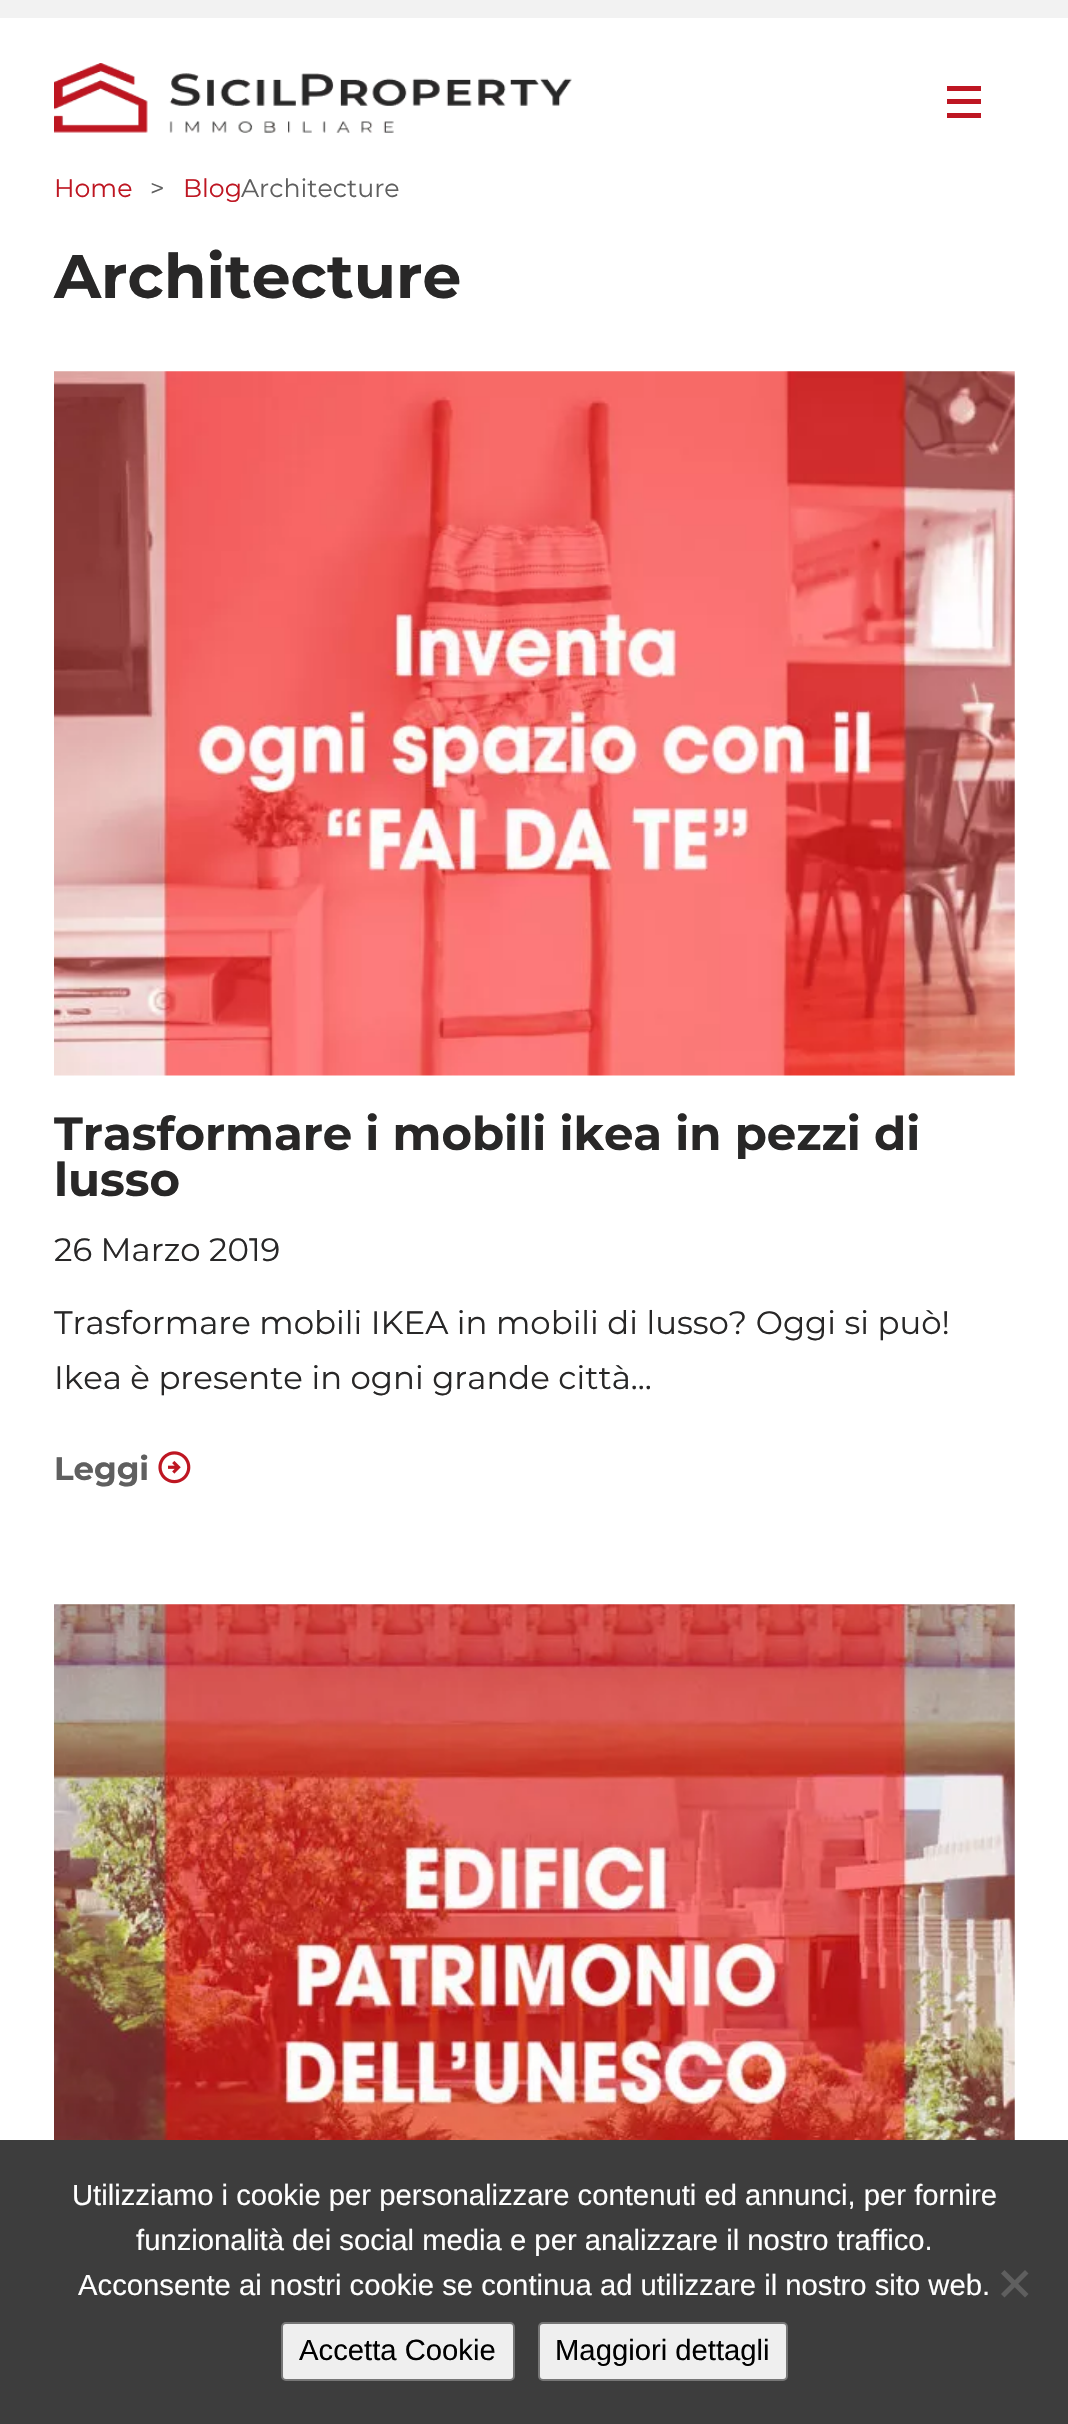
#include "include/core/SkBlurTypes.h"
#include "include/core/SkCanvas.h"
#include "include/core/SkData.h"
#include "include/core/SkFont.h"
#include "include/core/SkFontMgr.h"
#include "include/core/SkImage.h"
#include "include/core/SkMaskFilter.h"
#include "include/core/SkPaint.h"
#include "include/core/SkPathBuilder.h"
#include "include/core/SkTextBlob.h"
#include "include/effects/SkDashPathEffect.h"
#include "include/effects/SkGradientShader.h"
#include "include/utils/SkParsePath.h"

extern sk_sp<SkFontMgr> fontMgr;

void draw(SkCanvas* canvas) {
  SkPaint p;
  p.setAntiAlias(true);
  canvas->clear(SK_ColorWHITE);
  p.setColor(SkColorSetRGB(242, 242, 242));
  canvas->drawRect(SkRect::MakeLTRB(0, 0, 1068, 18), p);
  canvas->drawImageRect(SkImages::DeferredFromEncodedData(SkData::MakeFromFileName("images/1.png")), SkRect::MakeLTRB(54, 63, 572, 133), SkSamplingOptions());
  p.setColor(SkColorSetRGB(190, 22, 34));
  canvas->drawRect(SkRect::MakeLTRB(947, 86, 981, 91), p);
  canvas->drawRect(SkRect::MakeLTRB(947, 99, 981, 104), p);
  canvas->drawRect(SkRect::MakeLTRB(947, 113, 981, 118), p);
  canvas->drawImageRect(SkImages::DeferredFromEncodedData(SkData::MakeFromFileName("images/2.png")), SkRect::MakeLTRB(54, 371, 1015, 1076), SkSamplingOptions());
  canvas->drawImageRect(SkImages::DeferredFromEncodedData(SkData::MakeFromFileName("images/3.png")), SkRect::MakeLTRB(158, 1451, 191, 1484), SkSamplingOptions());
  canvas->drawImageRect(SkImages::DeferredFromEncodedData(SkData::MakeFromFileName("images/4.png")), SkRect::MakeLTRB(54, 1604, 1015, 2140), SkSamplingOptions());
  p.setColor(SkColorSetRGB(61, 61, 61));
  canvas->drawRect(SkRect::MakeLTRB(0, 2140, 1068, 2424), p);
  p.setColor(SkColorSetRGB(95, 95, 95));
  canvas->drawPath(SkPathBuilder().moveTo(1025, 2270).lineTo(1028.5f, 2273.5f).lineTo(1004.5f, 2297.5f).lineTo(1001, 2294).close().detach(), p);
  canvas->drawPath(SkPathBuilder().moveTo(1001, 2273.5f).lineTo(1004.5f, 2270).lineTo(1028.5f, 2294).lineTo(1025, 2297.5f).close().detach(), p);
  p.setColor(SkColorSetRGB(239, 239, 239));
  canvas->drawRoundRect(SkRect::MakeLTRB(282, 2323, 514, 2380), 4, 4, p);
  p.setStyle(SkPaint::kStroke_Style);
  p.setStrokeWidth(2);
  p.setColor(SkColorSetRGB(118, 118, 118));
  canvas->drawRoundRect(SkRect::MakeLTRB(282, 2323, 514, 2380), 4, 4, p);
  p.setStyle(SkPaint::kFill_Style);
  p.setColor(SkColorSetRGB(239, 239, 239));
  canvas->drawRoundRect(SkRect::MakeLTRB(539, 2323, 787, 2380), 4, 4, p);
  p.setStyle(SkPaint::kStroke_Style);
  p.setColor(SkColorSetRGB(118, 118, 118));
  canvas->drawRoundRect(SkRect::MakeLTRB(539, 2323, 787, 2380), 4, 4, p);
  SkFont font1(fontMgr->matchFamilyStyle("Montserrat", SkFontStyle::Normal()), 25.25f);
  font1.setSubpixel(true);
  p.setStyle(SkPaint::kFill_Style);
  p.setColor(SkColorSetRGB(190, 22, 34));
  canvas->drawString("Home", 54, 197, font1, p);
  p.setColor(SkColorSetRGB(95, 95, 95));
  canvas->drawString(">", 150, 197, font1, p);
  p.setColor(SkColorSetRGB(190, 22, 34));
  canvas->drawString("Blog", 183, 197, font1, p);
  p.setColor(SkColorSetRGB(95, 95, 95));
  canvas->drawString("Architecture", 241, 197, font1, p);
  SkFont font2(fontMgr->matchFamilyStyle("Montserrat", SkFontStyle::Bold()), 61.5f);
  font2.setSubpixel(true);
  p.setColor(SkColorSetRGB(40, 39, 39));
  canvas->drawString("Architecture", 54, 298, font2, p);
  SkFont font3(fontMgr->matchFamilyStyle("Montserrat", SkFontStyle::Bold()), 46.6f);
  font3.setSubpixel(true);
  canvas->drawString("Trasformare i mobili ikea in pezzi di", 54, 1150, font3, p);
  canvas->drawString("lusso", 54, 1196, font3, p);
  SkFont font4(fontMgr->matchFamilyStyle("Montserrat", SkFontStyle::Normal()), 32.4f);
  font4.setSubpixel(true);
  canvas->drawString("26 Marzo 2019", 54, 1261, font4, p);
  canvas->drawString("Trasformare mobili IKEA in mobili di lusso? Oggi si può!", 54, 1334, font4, p);
  canvas->drawString("Ikea è presente in ogni grande città…", 54, 1389, font4, p);
  SkFont font5(fontMgr->matchFamilyStyle("Montserrat", SkFontStyle::Bold()), 32.4f);
  font5.setSubpixel(true);
  p.setColor(SkColorSetRGB(95, 95, 95));
  canvas->drawString("Leggi", 54, 1480, font5, p);
  SkFont font6(fontMgr->matchFamilyStyle("Liberation Sans", SkFontStyle::Normal()), 29.25f);
  font6.setSubpixel(true);
  p.setColor(SK_ColorWHITE);
  canvas->drawString("Utilizziamo i cookie per personalizzare contenuti ed annunci, per fornire", 72, 2205, font6, p);
  canvas->drawString("funzionalità dei social media e per analizzare il nostro traffico.", 136, 2250, font6, p);
  canvas->drawString("Acconsente ai nostri cookie se continua ad utilizzare il nostro sito web.", 78, 2295, font6, p);
  p.setColor(SK_ColorBLACK);
  canvas->drawString("Accetta Cookie", 299, 2360, font6, p);
  canvas->drawString("Maggiori dettagli", 555, 2360, font6, p);
}
